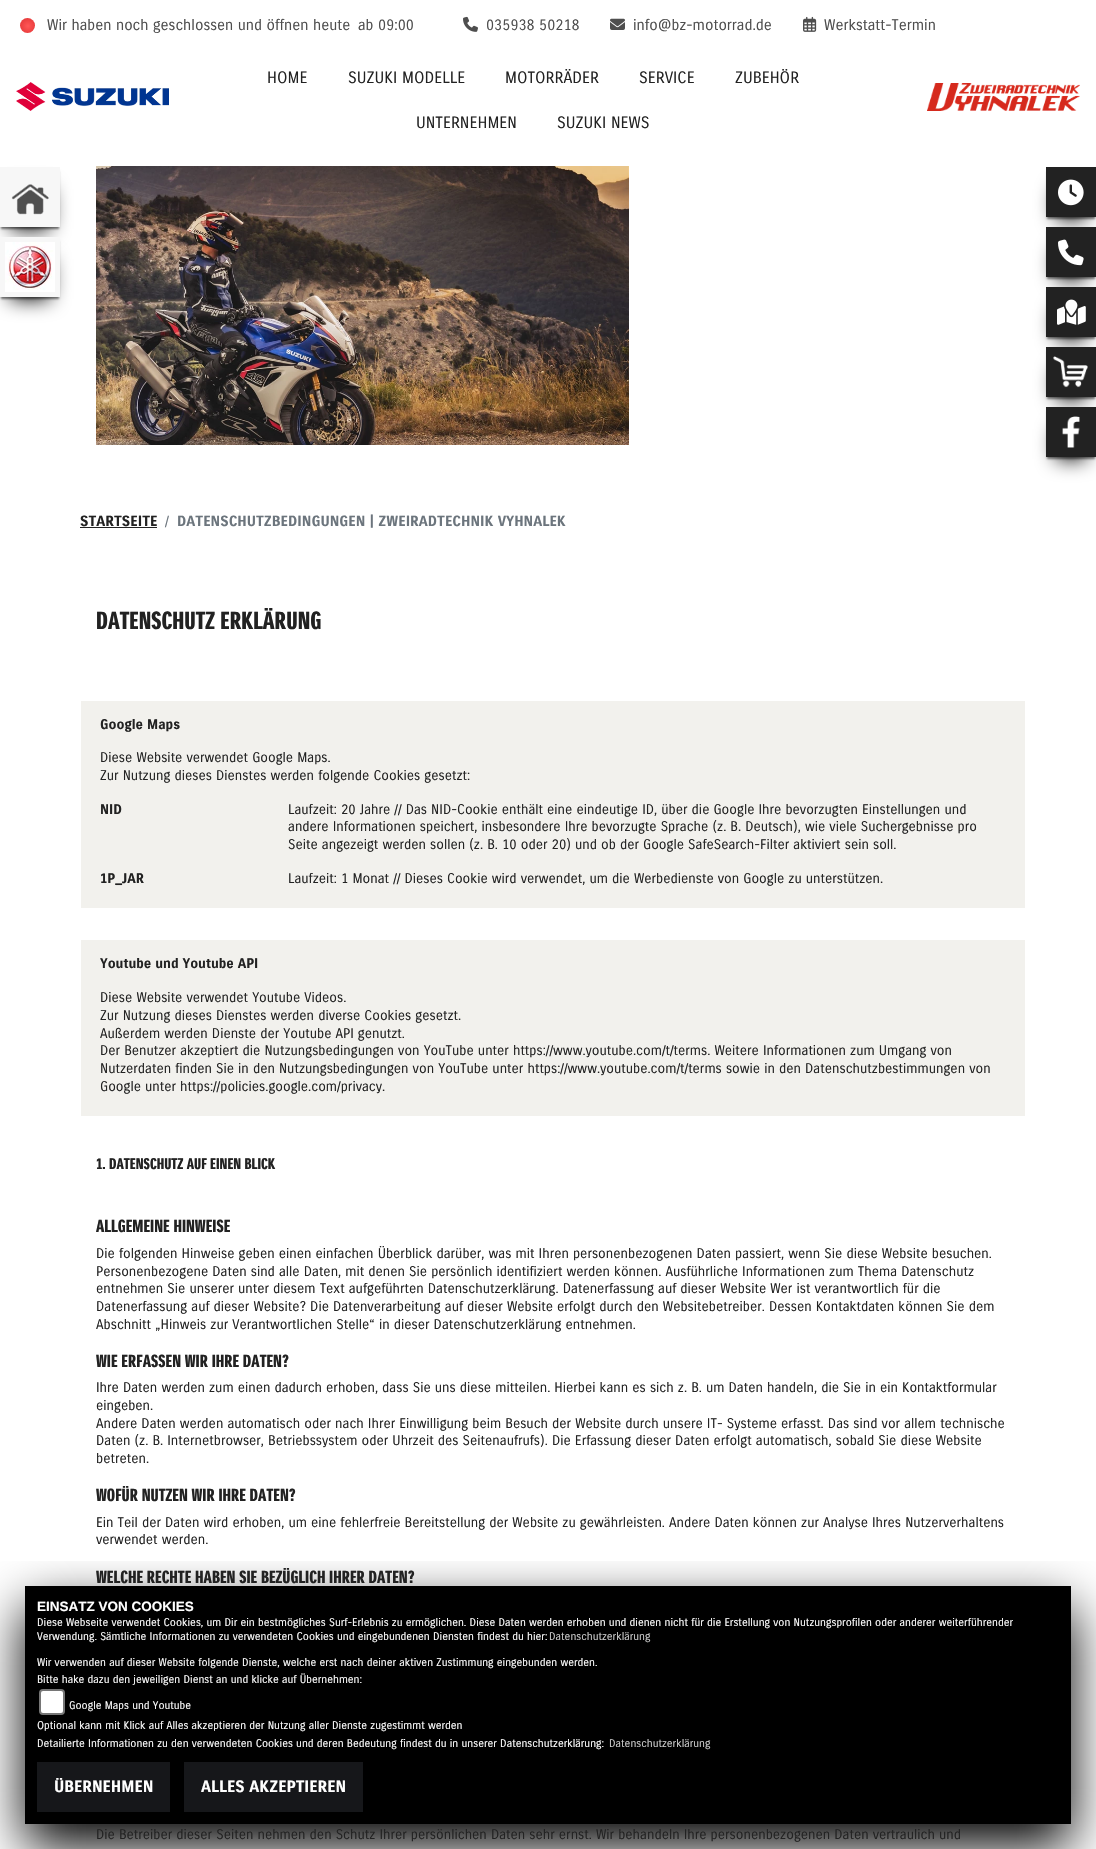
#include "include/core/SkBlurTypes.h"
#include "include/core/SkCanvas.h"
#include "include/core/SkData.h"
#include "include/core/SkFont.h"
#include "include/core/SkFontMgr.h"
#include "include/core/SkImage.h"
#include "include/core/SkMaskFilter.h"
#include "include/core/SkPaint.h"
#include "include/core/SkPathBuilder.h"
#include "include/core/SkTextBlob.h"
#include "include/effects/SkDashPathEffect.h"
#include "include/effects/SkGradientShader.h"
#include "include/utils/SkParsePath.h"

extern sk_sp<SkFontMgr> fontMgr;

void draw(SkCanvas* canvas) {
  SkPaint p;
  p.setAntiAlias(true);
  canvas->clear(SK_ColorWHITE);
  {
    const SkColor colors[] = {SkColorSetRGB(255, 87, 87), SkColorSetRGB(225, 51, 51)};
    const float stops[] = {0, 1};
    p.setShader(SkGradientShader::MakeRadial({28, 26}, 11, colors, stops, 2, SkTileMode::kClamp));
    p.setAlpha(255);
  }
  canvas->drawCircle(27.5f, 25.5f, 7.5f, p);
  canvas->drawImageRect(SkImages::DeferredFromEncodedData(SkData::MakeFromFileName("images/1.png")), SkRect::MakeLTRB(463, 16, 478, 32), SkSamplingOptions());
  canvas->drawImageRect(SkImages::DeferredFromEncodedData(SkData::MakeFromFileName("images/2.png")), SkRect::MakeLTRB(610, 18, 625, 30), SkSamplingOptions());
  canvas->drawImageRect(SkImages::DeferredFromEncodedData(SkData::MakeFromFileName("images/3.png")), SkRect::MakeLTRB(803, 16, 817, 32), SkSamplingOptions());
  canvas->drawImageRect(SkImages::DeferredFromEncodedData(SkData::MakeFromFileName("images/4.png")), SkRect::MakeLTRB(16, 82, 169, 111), SkSamplingOptions());
  canvas->drawImageRect(SkImages::DeferredFromEncodedData(SkData::MakeFromFileName("images/5.png")), SkRect::MakeLTRB(927, 83, 1080, 111), SkSamplingOptions());
  p.setShader(nullptr);
  p.setColor(SK_ColorBLACK);
  p.setMaskFilter(SkMaskFilter::MakeBlur(kNormal_SkBlurStyle, 10));
  canvas->drawRect(SkRect::MakeLTRB(10, 189, 50, 229), p);
  p.setMaskFilter(nullptr);
  p.setColor(SkColorSetARGB(128, 0, 0, 0));
  p.setMaskFilter(SkMaskFilter::MakeBlur(kNormal_SkBlurStyle, 1));
  canvas->drawRect(SkRect::MakeLTRB(1, 171, 59, 229), p);
  p.setMaskFilter(nullptr);
  p.setColor(SkColorSetRGB(247, 247, 247));
  canvas->drawRect(SkRect::MakeLTRB(0, 167, 60, 227), p);
  canvas->drawImageRect(SkImages::DeferredFromEncodedData(SkData::MakeFromFileName("images/6.png")), SkRect::MakeLTRB(11, 184, 49, 215), SkSamplingOptions());
  p.setColor(SK_ColorBLACK);
  p.setMaskFilter(SkMaskFilter::MakeBlur(kNormal_SkBlurStyle, 10));
  canvas->drawRect(SkRect::MakeLTRB(10, 259, 50, 299), p);
  p.setMaskFilter(nullptr);
  p.setColor(SkColorSetARGB(128, 0, 0, 0));
  p.setMaskFilter(SkMaskFilter::MakeBlur(kNormal_SkBlurStyle, 1));
  canvas->drawRect(SkRect::MakeLTRB(1, 241, 59, 299), p);
  p.setMaskFilter(nullptr);
  p.setColor(SkColorSetRGB(247, 247, 247));
  canvas->drawRect(SkRect::MakeLTRB(0, 237, 60, 297), p);
  canvas->drawImageRect(SkImages::DeferredFromEncodedData(SkData::MakeFromFileName("images/7.png")), SkRect::MakeLTRB(5, 242, 55, 292), SkSamplingOptions());
  canvas->drawImageRect(SkImages::DeferredFromEncodedData(SkData::MakeFromFileName("images/8.png")), SkRect::MakeLTRB(96, 166, 629, 445), SkSamplingOptions());
  p.setColor(SK_ColorBLACK);
  p.setMaskFilter(SkMaskFilter::MakeBlur(kNormal_SkBlurStyle, 10));
  canvas->drawRect(SkRect::MakeLTRB(1056, 189, 1086, 219), p);
  p.setMaskFilter(nullptr);
  p.setColor(SkColorSetARGB(128, 0, 0, 0));
  p.setMaskFilter(SkMaskFilter::MakeBlur(kNormal_SkBlurStyle, 1));
  canvas->drawRect(SkRect::MakeLTRB(1047, 171, 1095, 219), p);
  p.setMaskFilter(nullptr);
  p.setColor(SkColorSetRGB(34, 34, 34));
  canvas->drawRect(SkRect::MakeLTRB(1046, 167, 1096, 217), p);
  canvas->drawImageRect(SkImages::DeferredFromEncodedData(SkData::MakeFromFileName("images/9.png")), SkRect::MakeLTRB(1058, 179, 1084, 206), SkSamplingOptions());
  p.setColor(SK_ColorBLACK);
  p.setMaskFilter(SkMaskFilter::MakeBlur(kNormal_SkBlurStyle, 10));
  canvas->drawRect(SkRect::MakeLTRB(1056, 249, 1086, 279), p);
  p.setMaskFilter(nullptr);
  p.setColor(SkColorSetARGB(128, 0, 0, 0));
  p.setMaskFilter(SkMaskFilter::MakeBlur(kNormal_SkBlurStyle, 1));
  canvas->drawRect(SkRect::MakeLTRB(1047, 231, 1095, 279), p);
  p.setMaskFilter(nullptr);
  p.setColor(SkColorSetRGB(34, 34, 34));
  canvas->drawRect(SkRect::MakeLTRB(1046, 227, 1096, 277), p);
  canvas->drawImageRect(SkImages::DeferredFromEncodedData(SkData::MakeFromFileName("images/10.png")), SkRect::MakeLTRB(1058, 239, 1084, 266), SkSamplingOptions());
  p.setColor(SK_ColorBLACK);
  p.setMaskFilter(SkMaskFilter::MakeBlur(kNormal_SkBlurStyle, 10));
  canvas->drawRect(SkRect::MakeLTRB(1056, 309, 1086, 339), p);
  p.setMaskFilter(nullptr);
  p.setColor(SkColorSetARGB(128, 0, 0, 0));
  p.setMaskFilter(SkMaskFilter::MakeBlur(kNormal_SkBlurStyle, 1));
  canvas->drawRect(SkRect::MakeLTRB(1047, 291, 1095, 339), p);
  p.setMaskFilter(nullptr);
  p.setColor(SkColorSetRGB(34, 34, 34));
  canvas->drawRect(SkRect::MakeLTRB(1046, 287, 1096, 337), p);
  canvas->drawImageRect(SkImages::DeferredFromEncodedData(SkData::MakeFromFileName("images/11.png")), SkRect::MakeLTRB(1057, 299, 1086, 325), SkSamplingOptions());
  p.setColor(SK_ColorBLACK);
  p.setMaskFilter(SkMaskFilter::MakeBlur(kNormal_SkBlurStyle, 10));
  canvas->drawRect(SkRect::MakeLTRB(1056, 369, 1086, 399), p);
  p.setMaskFilter(nullptr);
  p.setColor(SkColorSetARGB(128, 0, 0, 0));
  p.setMaskFilter(SkMaskFilter::MakeBlur(kNormal_SkBlurStyle, 1));
  canvas->drawRect(SkRect::MakeLTRB(1047, 351, 1095, 399), p);
  p.setMaskFilter(nullptr);
  p.setColor(SkColorSetRGB(34, 34, 34));
  canvas->drawRect(SkRect::MakeLTRB(1046, 347, 1096, 397), p);
  canvas->drawImageRect(SkImages::DeferredFromEncodedData(SkData::MakeFromFileName("images/12.png")), SkRect::MakeLTRB(1053, 356, 1088, 388), SkSamplingOptions());
  p.setColor(SK_ColorBLACK);
  p.setMaskFilter(SkMaskFilter::MakeBlur(kNormal_SkBlurStyle, 10));
  canvas->drawRect(SkRect::MakeLTRB(1056, 429, 1086, 459), p);
  p.setMaskFilter(nullptr);
  p.setColor(SkColorSetARGB(128, 0, 0, 0));
  p.setMaskFilter(SkMaskFilter::MakeBlur(kNormal_SkBlurStyle, 1));
  canvas->drawRect(SkRect::MakeLTRB(1047, 411, 1095, 459), p);
  p.setMaskFilter(nullptr);
  p.setColor(SkColorSetRGB(34, 34, 34));
  canvas->drawRect(SkRect::MakeLTRB(1046, 407, 1096, 457), p);
  canvas->drawImageRect(SkImages::DeferredFromEncodedData(SkData::MakeFromFileName("images/13.png")), SkRect::MakeLTRB(1062, 416, 1080, 448), SkSamplingOptions());
  canvas->drawRect(SkRect::MakeLTRB(80, 527, 157, 528), p);
  p.setColor(SkColorSetRGB(242, 241, 237));
  canvas->drawRect(SkRect::MakeLTRB(81, 701, 1025, 908), p);
  canvas->drawRect(SkRect::MakeLTRB(81, 940, 1025, 1116), p);
  canvas->save();
  canvas->clipRect(SkRect::MakeLTRB(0, 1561, 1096, 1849));
  p.setColor(SK_ColorBLACK);
  p.setMaskFilter(SkMaskFilter::MakeBlur(kNormal_SkBlurStyle, 25));
  canvas->drawRect(SkRect::MakeLTRB(25, 1608, 1071, 1846), p);
  p.setMaskFilter(nullptr);
  canvas->restore();
  canvas->drawRect(SkRect::MakeLTRB(25, 1586, 1071, 1824), p);
  p.setColor(SK_ColorWHITE);
  canvas->drawRoundRect(SkRect::MakeLTRB(40, 1690, 64, 1714), 3, 3, p);
  p.setStyle(SkPaint::kStroke_Style);
  p.setStrokeWidth(2);
  p.setColor(SkColorSetRGB(118, 118, 118));
  canvas->drawRoundRect(SkRect::MakeLTRB(40, 1690, 64, 1714), 3, 3, p);
  p.setStyle(SkPaint::kFill_Style);
  p.setColor(SkColorSetRGB(22, 23, 26));
  canvas->drawRect(SkRect::MakeLTRB(37, 1762, 170, 1812), p);
  canvas->drawRect(SkRect::MakeLTRB(184, 1762, 363, 1812), p);
  SkFont font1(fontMgr->matchFamilyStyle("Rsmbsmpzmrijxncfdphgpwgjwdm", SkFontStyle::Normal()), 15);
  font1.setSubpixel(true);
  p.setColor(SkColorSetRGB(78, 78, 78));
  canvas->drawString("Wir haben noch geschlossen und öffnen heute", 47, 30, font1, p);
  canvas->drawString("ab 09:00", 358, 30, font1, p);
  canvas->drawString("035938 50218", 486, 30, font1, p);
  canvas->drawString("info@bz-motorrad.de", 633, 30, font1, p);
  canvas->drawString("Werkstatt-Termin", 824, 30, font1, p);
  SkFont font2(fontMgr->matchFamilyStyle("Rsmbsmpzmrijxncfdphgpwgjwdm", SkFontStyle::Normal()), 16);
  font2.setSubpixel(true);
  p.setColor(SkColorSetRGB(34, 34, 34));
  canvas->drawString("HOME", 267, 83, font2, p);
  canvas->drawString("SUZUKI MODELLE", 348, 83, font2, p);
  canvas->drawString("MOTORRÄDER", 505, 83, font2, p);
  canvas->drawString("SERVICE", 639, 83, font2, p);
  canvas->drawString("ZUBEHÖR", 735, 83, font2, p);
  canvas->drawString("UNTERNEHMEN", 416, 128, font2, p);
  canvas->drawString("SUZUKI NEWS", 557, 128, font2, p);
  SkFont font3(fontMgr->matchFamilyStyle("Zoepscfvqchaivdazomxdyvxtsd", SkFontStyle::Bold()), 14.4f);
  font3.setSubpixel(true);
  canvas->drawString("STARTSEITE", 80, 526, font3, p);
  SkFont font4(fontMgr->matchFamilyStyle("Rsmbsmpzmrijxncfdphgpwgjwdm", SkFontStyle::Normal()), 14.4f);
  font4.setSubpixel(true);
  p.setColor(SkColorSetRGB(108, 117, 125));
  canvas->drawString("/", 165, 526, font4, p);
  canvas->drawString("DATENSCHUTZBEDINGUNGEN | ZWEIRADTECHNIK VYHNALEK", 177, 526, font3, p);
  SkFont font5(fontMgr->matchFamilyStyle("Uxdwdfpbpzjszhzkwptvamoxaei", SkFontStyle::Bold()), 24);
  font5.setSubpixel(true);
  p.setColor(SkColorSetRGB(34, 34, 34));
  canvas->drawString("DATENSCHUTZ ERKLÄRUNG", 96, 629, font5, p);
  SkFont font6(fontMgr->matchFamilyStyle("Zoepscfvqchaivdazomxdyvxtsd", SkFontStyle::Bold()), 13.6f);
  font6.setSubpixel(true);
  canvas->drawString("Google Maps", 100, 729, font6, p);
  SkFont font7(fontMgr->matchFamilyStyle("Rsmbsmpzmrijxncfdphgpwgjwdm", SkFontStyle::Normal()), 13.6f);
  font7.setSubpixel(true);
  canvas->drawString("Diese Website verwendet Google Maps.", 100, 762, font7, p);
  canvas->drawString("Zur Nutzung dieses Dienstes werden folgende Cookies gesetzt:", 100, 780, font7, p);
  canvas->drawString("NID", 100, 814, font6, p);
  canvas->drawString("Laufzeit: 20 Jahre // Das NID-Cookie enthält eine eindeutige ID, über die Google Ihre bevorzugten Einstellungen und", 288, 814, font7, p);
  canvas->drawString("andere Informationen speichert, insbesondere Ihre bevorzugte Sprache (z. B. Deutsch), wie viele Suchergebnisse pro", 288, 831, font7, p);
  canvas->drawString("Seite angezeigt werden sollen (z. B. 10 oder 20) und ob der Google SafeSearch-Filter aktiviert sein soll.", 288, 849, font7, p);
  canvas->drawString("1P_JAR", 100, 883, font6, p);
  canvas->drawString("Laufzeit: 1 Monat // Dieses Cookie wird verwendet, um die Werbedienste von Google zu unterstützen.", 288, 883, font7, p);
  canvas->drawString("Youtube und Youtube API", 100, 968, font6, p);
  canvas->drawString("Diese Website verwendet Youtube Videos.", 100, 1002, font7, p);
  canvas->drawString("Zur Nutzung dieses Dienstes werden diverse Cookies gesetzt.", 100, 1020, font7, p);
  canvas->drawString("Außerdem werden Dienste der Youtube API genutzt.", 100, 1038, font7, p);
  canvas->drawString("Der Benutzer akzeptiert die Nutzungsbedingungen von YouTube unter https://www.youtube.com/t/terms. Weitere Informationen zum Umgang von", 100, 1055, font7, p);
  canvas->drawString("Nutzerdaten finden Sie in den Nutzungsbedingungen von YouTube unter https://www.youtube.com/t/terms sowie in den Datenschutzbestimmungen von", 100, 1073, font7, p);
  canvas->drawString("Google unter https://policies.google.com/privacy.", 100, 1091, font7, p);
  SkFont font8(fontMgr->matchFamilyStyle("Uxdwdfpbpzjszhzkwptvamoxaei", SkFontStyle::Bold()), 15);
  font8.setSubpixel(true);
  canvas->drawString("1. DATENSCHUTZ AUF EINEN BLICK", 96, 1169, font8, p);
  SkFont font9(fontMgr->matchFamilyStyle("Uxdwdfpbpzjszhzkwptvamoxaei", SkFontStyle::Bold()), 17);
  font9.setSubpixel(true);
  canvas->drawString("ALLGEMEINE HINWEISE", 96, 1232, font9, p);
  canvas->drawString("Die folgenden Hinweise geben einen einfachen Überblick darüber, was mit Ihren personenbezogenen Daten passiert, wenn Sie diese Website besuchen.", 96, 1258, font7, p);
  canvas->drawString("Personenbezogene Daten sind alle Daten, mit denen Sie persönlich identifiziert werden können. Ausführliche Informationen zum Thema Datenschutz", 96, 1276, font7, p);
  canvas->drawString("entnehmen Sie unserer unter diesem Text aufgeführten Datenschutzerklärung. Datenerfassung auf dieser Website Wer ist verantwortlich für die", 96, 1293, font7, p);
  canvas->drawString("Datenerfassung auf dieser Website? Die Datenverarbeitung auf dieser Website erfolgt durch den Websitebetreiber. Dessen Kontaktdaten können Sie dem", 96, 1311, font7, p);
  canvas->drawString("Abschnitt „Hinweis zur Verantwortlichen Stelle“ in dieser Datenschutzerklärung entnehmen.", 96, 1329, font7, p);
  canvas->drawString("WIE ERFASSEN WIR IHRE DATEN?", 96, 1367, font9, p);
  canvas->drawString("Ihre Daten werden zum einen dadurch erhoben, dass Sie uns diese mitteilen. Hierbei kann es sich z. B. um Daten handeln, die Sie in ein Kontaktformular", 96, 1392, font7, p);
  canvas->drawString("eingeben.", 96, 1410, font7, p);
  canvas->drawString("Andere Daten werden automatisch oder nach Ihrer Einwilligung beim Besuch der Website durch unsere IT- Systeme erfasst. Das sind vor allem technische", 96, 1428, font7, p);
  canvas->drawString("Daten (z. B. Internetbrowser, Betriebssystem oder Uhrzeit des Seitenaufrufs). Die Erfassung dieser Daten erfolgt automatisch, sobald Sie diese Website", 96, 1445, font7, p);
  canvas->drawString("betreten.", 96, 1463, font7, p);
  canvas->drawString("WOFÜR NUTZEN WIR IHRE DATEN?", 96, 1501, font9, p);
  canvas->drawString("Ein Teil der Daten wird erhoben, um eine fehlerfreie Bereitstellung der Website zu gewährleisten. Andere Daten können zur Analyse Ihres Nutzerverhaltens", 96, 1527, font7, p);
  canvas->drawString("verwendet werden.", 96, 1544, font7, p);
  canvas->drawString("WELCHE RECHTE HABEN SIE BEZÜGLICH IHRER DATEN?", 96, 1583, font9, p);
  canvas->drawString("Die Betreiber dieser Seiten nehmen den Schutz Ihrer persönlichen Daten sehr ernst. Wir behandeln Ihre personenbezogenen Daten vertraulich und", 96, 1839, font7, p);
  SkFont font10(fontMgr->matchFamilyStyle("Liberation Sans", SkFontStyle::Bold()), 13.5f);
  font10.setSubpixel(true);
  p.setColor(SK_ColorWHITE);
  canvas->drawString("EINSATZ VON COOKIES", 37, 1611, font10, p);
  SkFont font11(fontMgr->matchFamilyStyle("Rsmbsmpzmrijxncfdphgpwgjwdm", SkFontStyle::Normal()), 10.8f);
  font11.setSubpixel(true);
  canvas->drawString("Diese Webseite verwendet Cookies, um Dir ein bestmögliches Surf-Erlebnis zu ermöglichen. Diese Daten werden erhoben und dienen nicht für die Erstellung von Nutzungsprofilen oder anderer weiterführender", 37, 1626, font11, p);
  canvas->drawString("Verwendung. Sämtliche Informationen zu verwendeten Cookies und eingebundenen Diensten findest du hier:", 37, 1640, font11, p);
  p.setColor(SkColorSetRGB(204, 204, 204));
  canvas->drawString("Datenschutzerklärung", 549, 1640, font11, p);
  p.setColor(SK_ColorWHITE);
  canvas->drawString("Wir verwenden auf dieser Website folgende Dienste, welche erst nach deiner aktiven Zustimmung eingebunden werden.", 37, 1666, font11, p);
  canvas->drawString("Bitte hake dazu den jeweiligen Dienst an und klicke auf Übernehmen:", 37, 1683, font11, p);
  canvas->drawString("Google Maps und Youtube", 69, 1709, font11, p);
  canvas->drawString("Optional kann mit Klick auf Alles akzeptieren der Nutzung aller Dienste zugestimmt werden", 37, 1729, font11, p);
  canvas->drawString("Detailierte Informationen zu den verwendeten Cookies und deren Bedeutung findest du in unserer Datenschutzerklärung:", 37, 1747, font11, p);
  p.setColor(SkColorSetRGB(204, 204, 204));
  canvas->drawString("Datenschutzerklärung", 609, 1747, font11, p);
  SkFont font12(fontMgr->matchFamilyStyle("Zoepscfvqchaivdazomxdyvxtsd", SkFontStyle::Bold()), 16);
  font12.setSubpixel(true);
  p.setColor(SK_ColorWHITE);
  canvas->drawString("ÜBERNEHMEN", 54, 1792, font12, p);
  canvas->drawString("ALLES AKZEPTIEREN", 201, 1792, font12, p);
}
